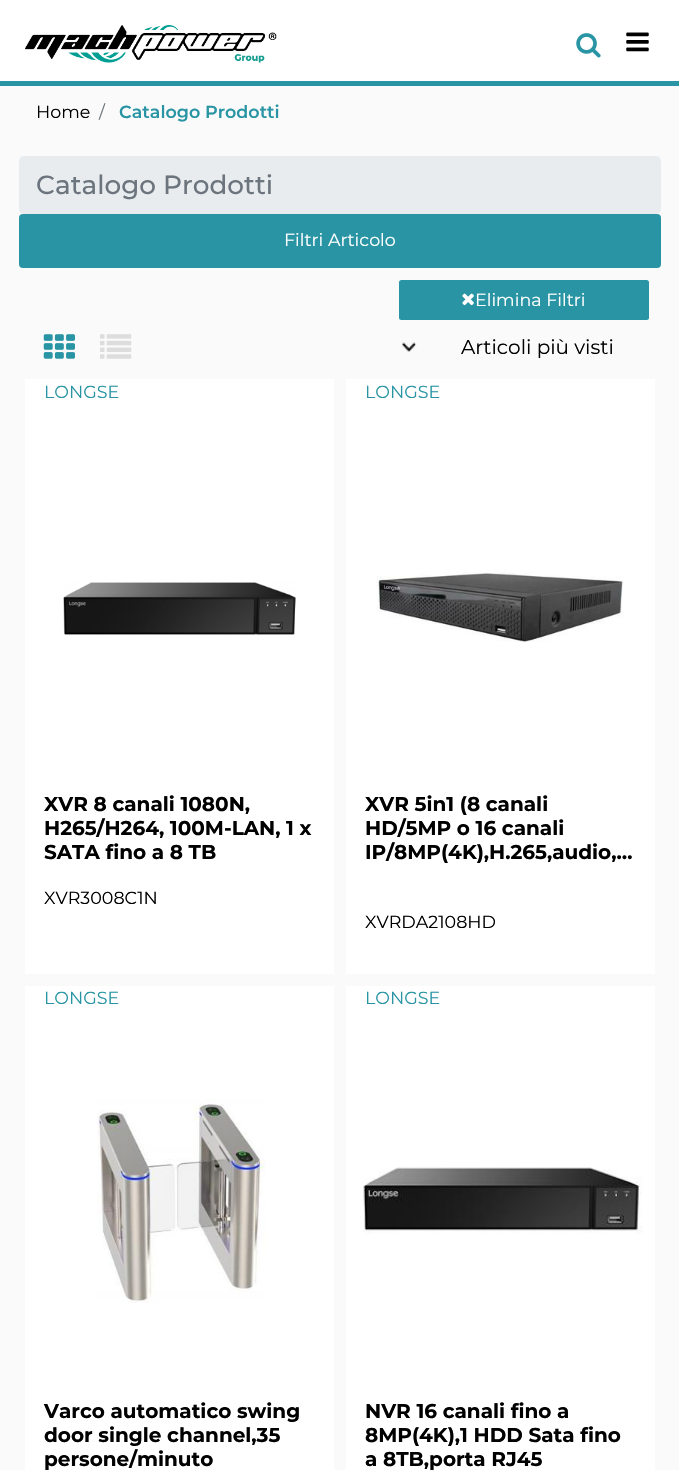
#include "include/core/SkBlurTypes.h"
#include "include/core/SkCanvas.h"
#include "include/core/SkData.h"
#include "include/core/SkFont.h"
#include "include/core/SkFontMgr.h"
#include "include/core/SkImage.h"
#include "include/core/SkMaskFilter.h"
#include "include/core/SkPaint.h"
#include "include/core/SkPathBuilder.h"
#include "include/core/SkTextBlob.h"
#include "include/effects/SkDashPathEffect.h"
#include "include/effects/SkGradientShader.h"
#include "include/utils/SkParsePath.h"

extern sk_sp<SkFontMgr> fontMgr;

void draw(SkCanvas* canvas) {
  SkPaint p;
  p.setAntiAlias(true);
  canvas->clear(SkColorSetRGB(250, 250, 250));
  p.setColor(SK_ColorWHITE);
  canvas->drawRect(SkRect::MakeLTRB(0, 0, 679, 81), p);
  p.setColor(SkColorSetRGB(41, 149, 164));
  canvas->drawRect(SkRect::MakeLTRB(0, 81, 679, 86), p);
  canvas->drawImageRect(SkImages::DeferredFromEncodedData(SkData::MakeFromFileName("images/1.png")), SkRect::MakeLTRB(25, 25, 277, 63), SkSamplingOptions());
  canvas->drawImageRect(SkImages::DeferredFromEncodedData(SkData::MakeFromFileName("images/2.png")), SkRect::MakeLTRB(576, 33, 601, 58), SkSamplingOptions());
  canvas->drawImageRect(SkImages::DeferredFromEncodedData(SkData::MakeFromFileName("images/3.png")), SkRect::MakeLTRB(626, 32, 649, 52), SkSamplingOptions());
  p.setColor(SkColorSetRGB(233, 236, 239));
  canvas->drawRoundRect(SkRect::MakeLTRB(19, 156, 661, 214), 5, 5, p);
  p.setColor(SkColorSetRGB(41, 149, 164));
  canvas->drawRoundRect(SkRect::MakeLTRB(19, 214, 661, 268), 4, 4, p);
  canvas->drawRoundRect(SkRect::MakeLTRB(399, 280, 649, 320), 2.5f, 2.5f, p);
  canvas->drawImageRect(SkImages::DeferredFromEncodedData(SkData::MakeFromFileName("images/4.png")), SkRect::MakeLTRB(462, 293, 474, 306), SkSamplingOptions());
  canvas->drawImageRect(SkImages::DeferredFromEncodedData(SkData::MakeFromFileName("images/5.png")), SkRect::MakeLTRB(402, 342, 417, 352), SkSamplingOptions());
  p.setColor(SK_ColorWHITE);
  canvas->drawRect(SkRect::MakeLTRB(25, 379, 334, 974), p);
  canvas->drawImageRect(SkImages::DeferredFromEncodedData(SkData::MakeFromFileName("images/6.png")), SkRect::MakeLTRB(63, 582, 296, 635), SkSamplingOptions());
  canvas->drawRect(SkRect::MakeLTRB(346, 379, 655, 974), p);
  canvas->drawImageRect(SkImages::DeferredFromEncodedData(SkData::MakeFromFileName("images/7.png")), SkRect::MakeLTRB(376, 572, 623, 642), SkSamplingOptions());
  canvas->drawRect(SkRect::MakeLTRB(25, 986, 334, 1470), p);
  canvas->drawImageRect(SkImages::DeferredFromEncodedData(SkData::MakeFromFileName("images/8.png")), SkRect::MakeLTRB(97, 1098, 266, 1303), SkSamplingOptions());
  canvas->drawRect(SkRect::MakeLTRB(346, 986, 655, 1470), p);
  canvas->drawImageRect(SkImages::DeferredFromEncodedData(SkData::MakeFromFileName("images/9.png")), SkRect::MakeLTRB(363, 1167, 643, 1234), SkSamplingOptions());
  canvas->drawImageRect(SkImages::DeferredFromEncodedData(SkData::MakeFromFileName("images/10.png")), SkRect::MakeLTRB(43, 334, 75, 359), SkSamplingOptions());
  canvas->drawImageRect(SkImages::DeferredFromEncodedData(SkData::MakeFromFileName("images/11.png")), SkRect::MakeLTRB(100, 334, 132, 359), SkSamplingOptions());
  SkFont font1(fontMgr->matchFamilyStyle("Montserrat", SkFontStyle::Normal()), 17.5f);
  font1.setSubpixel(true);
  p.setColor(SK_ColorBLACK);
  canvas->drawString("Home", 36, 118, font1, p);
  p.setColor(SkColorSetRGB(108, 117, 125));
  canvas->drawString("/", 99, 118, font1, p);
  SkFont font2(fontMgr->matchFamilyStyle("Montserrat", SkFontStyle(600, SkFontStyle::kNormal_Width, SkFontStyle::kUpright_Slant)), 17.5f);
  font2.setSubpixel(true);
  p.setColor(SkColorSetRGB(41, 149, 164));
  canvas->drawString("Catalogo Prodotti", 119, 118, font2, p);
  SkFont font3(fontMgr->matchFamilyStyle("Montserrat", SkFontStyle(500, SkFontStyle::kNormal_Width, SkFontStyle::kUpright_Slant)), 26.25f);
  font3.setSubpixel(true);
  p.setColor(SkColorSetRGB(108, 117, 125));
  canvas->drawString("Catalogo Prodotti", 36, 194, font3, p);
  p.setColor(SK_ColorWHITE);
  canvas->drawString("Filtri Articolo", 284, 246, font1, p);
  canvas->drawString("Elimina Filtri", 475, 306, font1, p);
  SkFont font4(fontMgr->matchFamilyStyle("Montserrat", SkFontStyle::Normal()), 20);
  font4.setSubpixel(true);
  p.setColor(SK_ColorBLACK);
  canvas->drawString("Articoli più visti", 461, 354, font4, p);
  p.setColor(SkColorSetRGB(41, 149, 164));
  canvas->drawString("LONGSE", 44, 398, font1, p);
  SkFont font5(fontMgr->matchFamilyStyle("Montserrat", SkFontStyle::Bold()), 20);
  font5.setSubpixel(true);
  p.setColor(SK_ColorBLACK);
  canvas->drawString("XVR 8 canali 1080N,", 44, 811, font5, p);
  canvas->drawString("H265/H264, 100M-LAN, 1 x", 44, 835, font5, p);
  canvas->drawString("SATA fino a 8 TB", 44, 859, font5, p);
  canvas->drawString("XVR3008C1N", 44, 904, font1, p);
  p.setColor(SkColorSetRGB(41, 149, 164));
  canvas->drawString("LONGSE", 365, 398, font1, p);
  p.setColor(SK_ColorBLACK);
  canvas->drawString("XVR 5in1 (8 canali", 365, 811, font5, p);
  canvas->drawString("HD/5MP o 16 canali", 365, 835, font5, p);
  canvas->drawString("IP/8MP(4K),H.265,audio,…", 365, 859, font5, p);
  canvas->drawString("XVRDA2108HD", 365, 928, font1, p);
  p.setColor(SkColorSetRGB(41, 149, 164));
  canvas->drawString("LONGSE", 44, 1004, font1, p);
  p.setColor(SK_ColorBLACK);
  canvas->drawString("Varco automatico swing", 44, 1418, font5, p);
  canvas->drawString("door single channel,35", 44, 1442, font5, p);
  canvas->drawString("persone/minuto", 44, 1466, font5, p);
  p.setColor(SkColorSetRGB(41, 149, 164));
  canvas->drawString("LONGSE", 365, 1004, font1, p);
  p.setColor(SK_ColorBLACK);
  canvas->drawString("NVR 16 canali fino a", 365, 1418, font5, p);
  canvas->drawString("8MP(4K),1 HDD Sata fino", 365, 1442, font5, p);
  canvas->drawString("a 8TB,porta RJ45", 365, 1466, font5, p);
}
